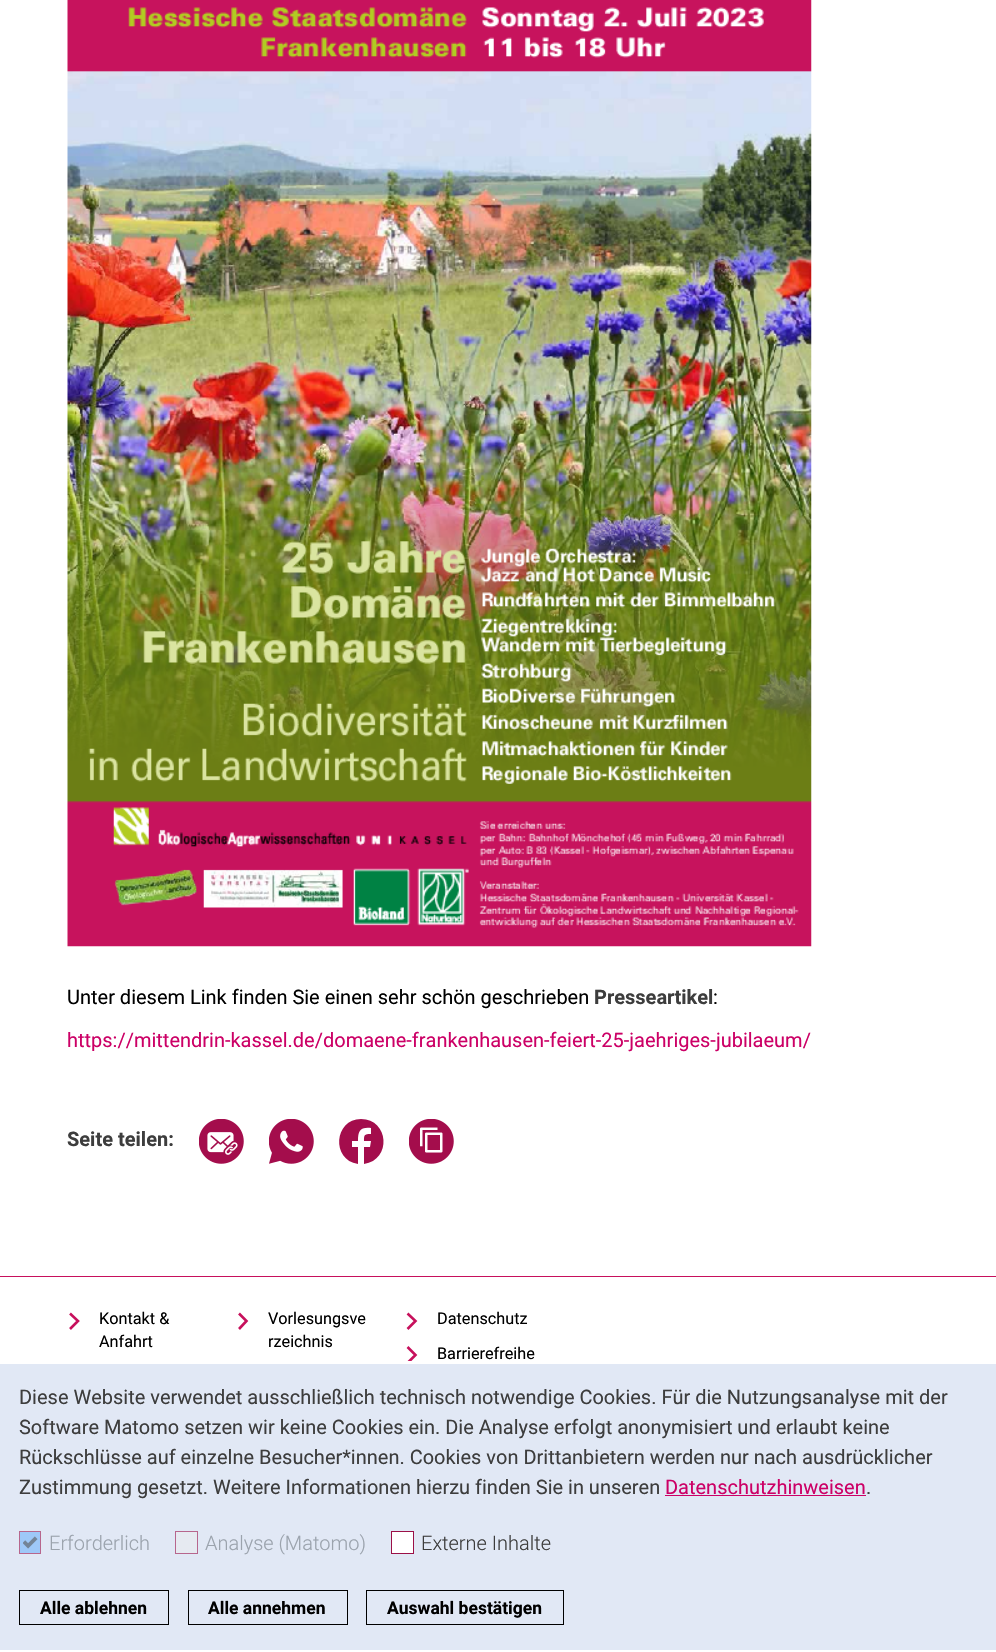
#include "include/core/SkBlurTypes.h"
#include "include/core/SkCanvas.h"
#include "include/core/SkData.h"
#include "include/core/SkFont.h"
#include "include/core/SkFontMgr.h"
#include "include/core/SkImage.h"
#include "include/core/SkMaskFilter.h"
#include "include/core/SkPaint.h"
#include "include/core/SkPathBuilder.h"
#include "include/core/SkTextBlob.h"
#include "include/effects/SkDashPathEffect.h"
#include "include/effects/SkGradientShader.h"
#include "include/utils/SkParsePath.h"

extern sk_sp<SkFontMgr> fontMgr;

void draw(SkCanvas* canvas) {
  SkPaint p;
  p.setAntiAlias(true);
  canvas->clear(SK_ColorWHITE);
  canvas->drawImageRect(SkImages::DeferredFromEncodedData(SkData::MakeFromFileName("images/1.png")), SkRect::MakeLTRB(67, 0, 812, 947), SkSamplingOptions());
  canvas->drawImageRect(SkImages::DeferredFromEncodedData(SkData::MakeFromFileName("images/2.png")), SkRect::MakeLTRB(199, 1119, 244, 1164), SkSamplingOptions());
  canvas->drawImageRect(SkImages::DeferredFromEncodedData(SkData::MakeFromFileName("images/3.png")), SkRect::MakeLTRB(269, 1119, 314, 1164), SkSamplingOptions());
  p.setColor(SkColorSetRGB(164, 13, 76));
  canvas->drawPath(SkPathBuilder().moveTo(361, 1119).cubicTo(334, 1119, 331, 1160, 358, 1164).lineTo(358, 1147).lineTo(352, 1147).lineTo(352, 1141).lineTo(358, 1141).cubicTo(358, 1131, 360, 1127, 371, 1128).lineTo(371, 1134).cubicTo(364, 1134, 364, 1135, 364, 1141).lineTo(371, 1141).lineTo(370, 1147).lineTo(364, 1147).lineTo(364, 1164).cubicTo(392, 1160, 389, 1119, 361, 1119).close().detach(), p);
  canvas->drawImageRect(SkImages::DeferredFromEncodedData(SkData::MakeFromFileName("images/4.png")), SkRect::MakeLTRB(409, 1119, 454, 1164), SkSamplingOptions());
  p.setColor(SkColorSetRGB(199, 16, 92));
  canvas->drawRect(SkRect::MakeLTRB(0, 1276, 996, 1277), p);
  p.setStyle(SkPaint::kStroke_Style);
  p.setStrokeWidth(2.6f);
  canvas->drawPath(SkPathBuilder().moveTo(70, 1329).lineTo(78, 1321).lineTo(70, 1313.5f).detach(), p);
  canvas->drawPath(SkPathBuilder().moveTo(239, 1329).lineTo(246.5f, 1321).lineTo(239, 1313.5f).detach(), p);
  canvas->drawPath(SkPathBuilder().moveTo(407.5f, 1329).lineTo(415.5f, 1321).lineTo(407.5f, 1313.5f).detach(), p);
  canvas->drawPath(SkPathBuilder().moveTo(407.5f, 1363).lineTo(415.5f, 1355).lineTo(407.5f, 1347).detach(), p);
  p.setStyle(SkPaint::kFill_Style);
  p.setColor(SkColorSetRGB(225, 232, 245));
  canvas->drawRect(SkRect::MakeLTRB(0, 1364, 996, 1650), p);
  p.setColor(SK_ColorWHITE);
  canvas->drawRect(SkRect::MakeLTRB(406, 1361, 412, 1364), p);
  p.setColor(SkColorSetRGB(204, 0, 102));
  canvas->drawRect(SkRect::MakeLTRB(665, 1495, 866, 1496), p);
  p.setColor(SkColorSetRGB(158, 200, 248));
  canvas->drawRect(SkRect::MakeLTRB(19.5f, 1531.5f, 40.5f, 1553.5f), p);
  p.setStyle(SkPaint::kStroke_Style);
  p.setStrokeWidth(1);
  p.setColor(SkColorSetRGB(183, 102, 141));
  canvas->drawRect(SkRect::MakeLTRB(19.5f, 1531.5f, 40.5f, 1553.5f), p);
  canvas->drawImageRect(SkImages::DeferredFromEncodedData(SkData::MakeFromFileName("images/5.png")), SkRect::MakeLTRB(23, 1536, 38, 1549), SkSamplingOptions());
  p.setStyle(SkPaint::kFill_Style);
  p.setColor(SkColorSetRGB(230, 234, 241));
  canvas->drawRect(SkRect::MakeLTRB(175.5f, 1531.5f, 197.5f, 1553.5f), p);
  p.setStyle(SkPaint::kStroke_Style);
  p.setColor(SkColorSetRGB(183, 102, 141));
  canvas->drawRect(SkRect::MakeLTRB(175.5f, 1531.5f, 197.5f, 1553.5f), p);
  p.setStyle(SkPaint::kFill_Style);
  p.setColor(SK_ColorWHITE);
  canvas->drawRect(SkRect::MakeLTRB(391.5f, 1531.5f, 413.5f, 1553.5f), p);
  p.setStyle(SkPaint::kStroke_Style);
  p.setColor(SkColorSetRGB(155, 16, 71));
  canvas->drawRect(SkRect::MakeLTRB(391.5f, 1531.5f, 413.5f, 1553.5f), p);
  p.setColor(SK_ColorBLACK);
  canvas->drawRect(SkRect::MakeLTRB(19.5f, 1590.5f, 168.5f, 1624.5f), p);
  canvas->drawRect(SkRect::MakeLTRB(188.5f, 1590.5f, 347.5f, 1624.5f), p);
  canvas->drawRect(SkRect::MakeLTRB(366.5f, 1590.5f, 563.5f, 1624.5f), p);
  SkFont font1(fontMgr->matchFamilyStyle("Roboto", SkFontStyle::Normal()), 20);
  font1.setSubpixel(true);
  p.setStyle(SkPaint::kFill_Style);
  canvas->drawString("Unter diesem Link finden Sie einen sehr schön geschrieben", 67, 1004, font1, p);
  SkFont font2(fontMgr->matchFamilyStyle("Roboto", SkFontStyle::Bold()), 20);
  font2.setSubpixel(true);
  p.setColor(SkColorSetRGB(61, 61, 61));
  canvas->drawString("Presseartikel", 594, 1004, font2, p);
  p.setColor(SK_ColorBLACK);
  canvas->drawString(":", 713, 1004, font1, p);
  p.setColor(SkColorSetRGB(204, 0, 102));
  canvas->drawString("https://mittendrin-kassel.de/domaene-frankenhausen-feiert-25-jaehriges-jubilaeum/", 67, 1047, font1, p);
  p.setColor(SkColorSetRGB(61, 61, 61));
  canvas->drawString("Seite teilen:", 67, 1146, font2, p);
  SkFont font3(fontMgr->matchFamilyStyle("Roboto", SkFontStyle::Normal()), 16.25f);
  font3.setSubpixel(true);
  p.setColor(SK_ColorBLACK);
  canvas->drawString("Kontakt &", 99, 1324, font3, p);
  canvas->drawString("Anfahrt", 99, 1347, font3, p);
  canvas->drawString("Vorlesungsve", 268, 1324, font3, p);
  canvas->drawString("rzeichnis", 268, 1347, font3, p);
  canvas->drawString("Datenschutz", 437, 1324, font3, p);
  canvas->drawString("Barrierefreihe", 437, 1359, font3, p);
  p.setColor(SkColorSetRGB(61, 61, 61));
  canvas->drawString("Diese Website verwendet ausschließlich technisch notwendige Cookies. Für die Nutzungsanalyse mit der", 19, 1404, font1, p);
  canvas->drawString("Software Matomo setzen wir keine Cookies ein. Die Analyse erfolgt anonymisiert und erlaubt keine", 19, 1434, font1, p);
  canvas->drawString("Rückschlüsse auf einzelne Besucher*innen. Cookies von Drittanbietern werden nur nach ausdrücklicher", 19, 1464, font1, p);
  canvas->drawString("Zustimmung gesetzt. Weitere Informationen hierzu finden Sie in unseren", 19, 1494, font1, p);
  p.setColor(SkColorSetRGB(204, 0, 102));
  canvas->drawString("Datenschutzhinweisen", 665, 1494, font1, p);
  p.setColor(SkColorSetRGB(61, 61, 61));
  canvas->drawString(".", 866, 1494, font1, p);
  SkFont font4(fontMgr->matchFamilyStyle("Roboto", SkFontStyle(300, SkFontStyle::kNormal_Width, SkFontStyle::kUpright_Slant)), 20);
  font4.setSubpixel(true);
  p.setColor(SkColorSetRGB(155, 163, 173));
  canvas->drawString("Erforderlich", 49, 1550, font4, p);
  canvas->drawString("Analyse (Matomo)", 205, 1550, font4, p);
  p.setColor(SkColorSetRGB(61, 61, 61));
  canvas->drawString("Externe Inhalte", 421, 1550, font4, p);
  SkFont font5(fontMgr->matchFamilyStyle("Roboto", SkFontStyle::Bold()), 17.5f);
  font5.setSubpixel(true);
  p.setColor(SK_ColorBLACK);
  canvas->drawString("Alle ablehnen", 40, 1614, font5, p);
  canvas->drawString("Alle annehmen", 208, 1614, font5, p);
  canvas->drawString("Auswahl bestätigen", 387, 1614, font5, p);
}
